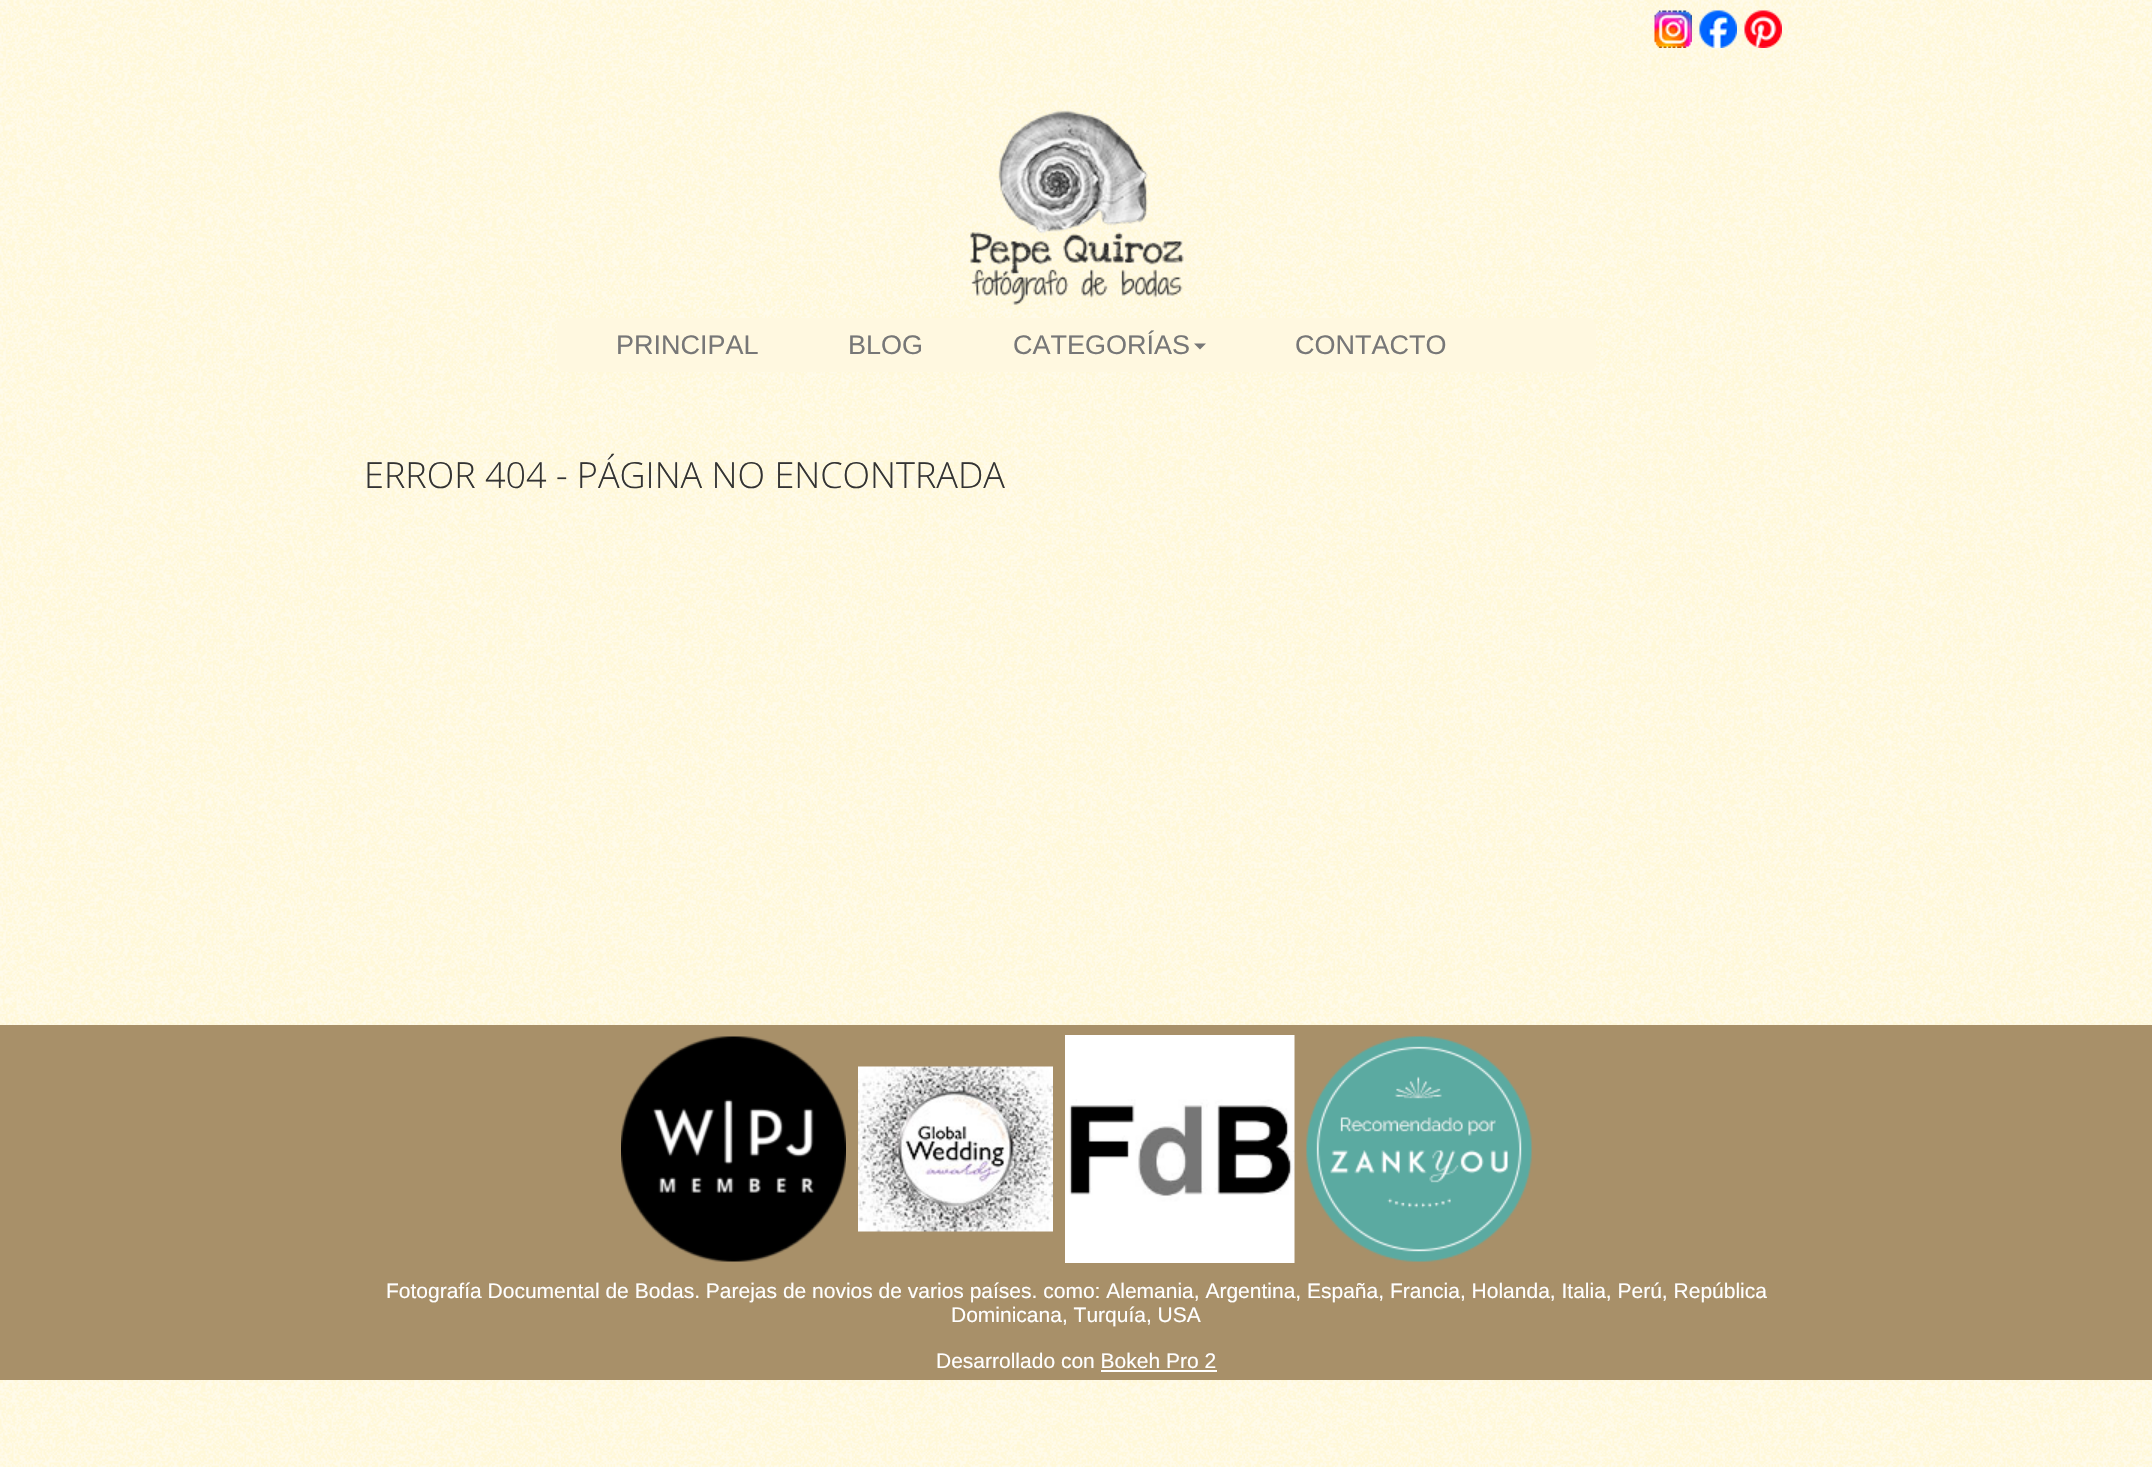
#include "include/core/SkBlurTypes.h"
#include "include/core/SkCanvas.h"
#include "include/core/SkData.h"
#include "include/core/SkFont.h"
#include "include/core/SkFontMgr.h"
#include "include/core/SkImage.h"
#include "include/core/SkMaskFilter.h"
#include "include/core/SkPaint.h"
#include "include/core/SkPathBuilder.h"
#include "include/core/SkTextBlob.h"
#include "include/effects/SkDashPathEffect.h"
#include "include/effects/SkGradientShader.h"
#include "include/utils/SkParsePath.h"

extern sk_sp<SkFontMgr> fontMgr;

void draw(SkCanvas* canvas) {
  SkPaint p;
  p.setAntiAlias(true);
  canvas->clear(SK_ColorWHITE);
  canvas->drawImageRect(SkImages::DeferredFromEncodedData(SkData::MakeFromFileName("images/1.png")), SkRect::MakeLTRB(0, 0, 2152, 1467), SkSamplingOptions());
  canvas->drawImageRect(SkImages::DeferredFromEncodedData(SkData::MakeFromFileName("images/2.png")), SkRect::MakeLTRB(1654, 10, 1692, 48), SkSamplingOptions());
  canvas->drawImageRect(SkImages::DeferredFromEncodedData(SkData::MakeFromFileName("images/3.png")), SkRect::MakeLTRB(1699, 10, 1737, 48), SkSamplingOptions());
  canvas->drawImageRect(SkImages::DeferredFromEncodedData(SkData::MakeFromFileName("images/4.png")), SkRect::MakeLTRB(1744, 10, 1782, 48), SkSamplingOptions());
  canvas->drawImageRect(SkImages::DeferredFromEncodedData(SkData::MakeFromFileName("images/5.png")), SkRect::MakeLTRB(970, 110, 1184, 305), SkSamplingOptions());
  p.setColor(SkColorSetRGB(255, 248, 224));
  canvas->drawRoundRect(SkRect::MakeLTRB(557, 318, 1596, 372), 9, 9, p);
  p.setColor(SkColorSetRGB(119, 119, 119));
  canvas->drawPath(SkPathBuilder().moveTo(1194, 343.5f).lineTo(1206, 343.5f).lineTo(1200, 349.5f).close().detach(), p);
  p.setColor(SkColorSetRGB(168, 144, 105));
  canvas->drawRect(SkRect::MakeLTRB(0, 1025, 2152, 1380), p);
  canvas->drawImageRect(SkImages::DeferredFromEncodedData(SkData::MakeFromFileName("images/6.png")), SkRect::MakeLTRB(621, 1036, 846, 1262), SkSamplingOptions());
  canvas->drawImageRect(SkImages::DeferredFromEncodedData(SkData::MakeFromFileName("images/7.png")), SkRect::MakeLTRB(858, 1066, 1053, 1232), SkSamplingOptions());
  canvas->drawImageRect(SkImages::DeferredFromEncodedData(SkData::MakeFromFileName("images/8.png")), SkRect::MakeLTRB(1065, 1035, 1295, 1263), SkSamplingOptions());
  canvas->drawImageRect(SkImages::DeferredFromEncodedData(SkData::MakeFromFileName("images/9.png")), SkRect::MakeLTRB(1306, 1036, 1532, 1262), SkSamplingOptions());
  p.setColor(SK_ColorWHITE);
  canvas->drawRect(SkRect::MakeLTRB(1101, 1370, 1217, 1372), p);
  SkFont font1(fontMgr->matchFamilyStyle("Liberation Sans", SkFontStyle::Normal()), 27);
  font1.setSubpixel(true);
  p.setColor(SkColorSetRGB(119, 119, 119));
  canvas->drawString("PRINCIPAL", 616, 354, font1, p);
  canvas->drawString("BLOG", 848, 354, font1, p);
  canvas->drawString("CATEGORÍAS", 1013, 354, font1, p);
  canvas->drawString("CONTACTO", 1295, 354, font1, p);
  SkFont font2(fontMgr->matchFamilyStyle("Open Sans", SkFontStyle(300, SkFontStyle::kNormal_Width, SkFontStyle::kUpright_Slant)), 36);
  font2.setSubpixel(true);
  p.setColor(SkColorSetRGB(51, 51, 51));
  canvas->drawString("ERROR 404 - PÁGINA NO ENCONTRADA", 364, 488, font2, p);
  SkFont font3(fontMgr->matchFamilyStyle("Liberation Sans", SkFontStyle::Normal()), 21);
  font3.setSubpixel(true);
  p.setColor(SK_ColorWHITE);
  canvas->drawString("Fotografía Documental de Bodas. Parejas de novios de varios países. como: Alemania, Argentina, España, Francia, Holanda, Italia, Perú, República", 386, 1298, font3, p);
  canvas->drawString("Dominicana, Turquía, USA", 951, 1322, font3, p);
  canvas->drawString("Desarrollado con Bokeh Pro 2", 936, 1368, font3, p);
}
